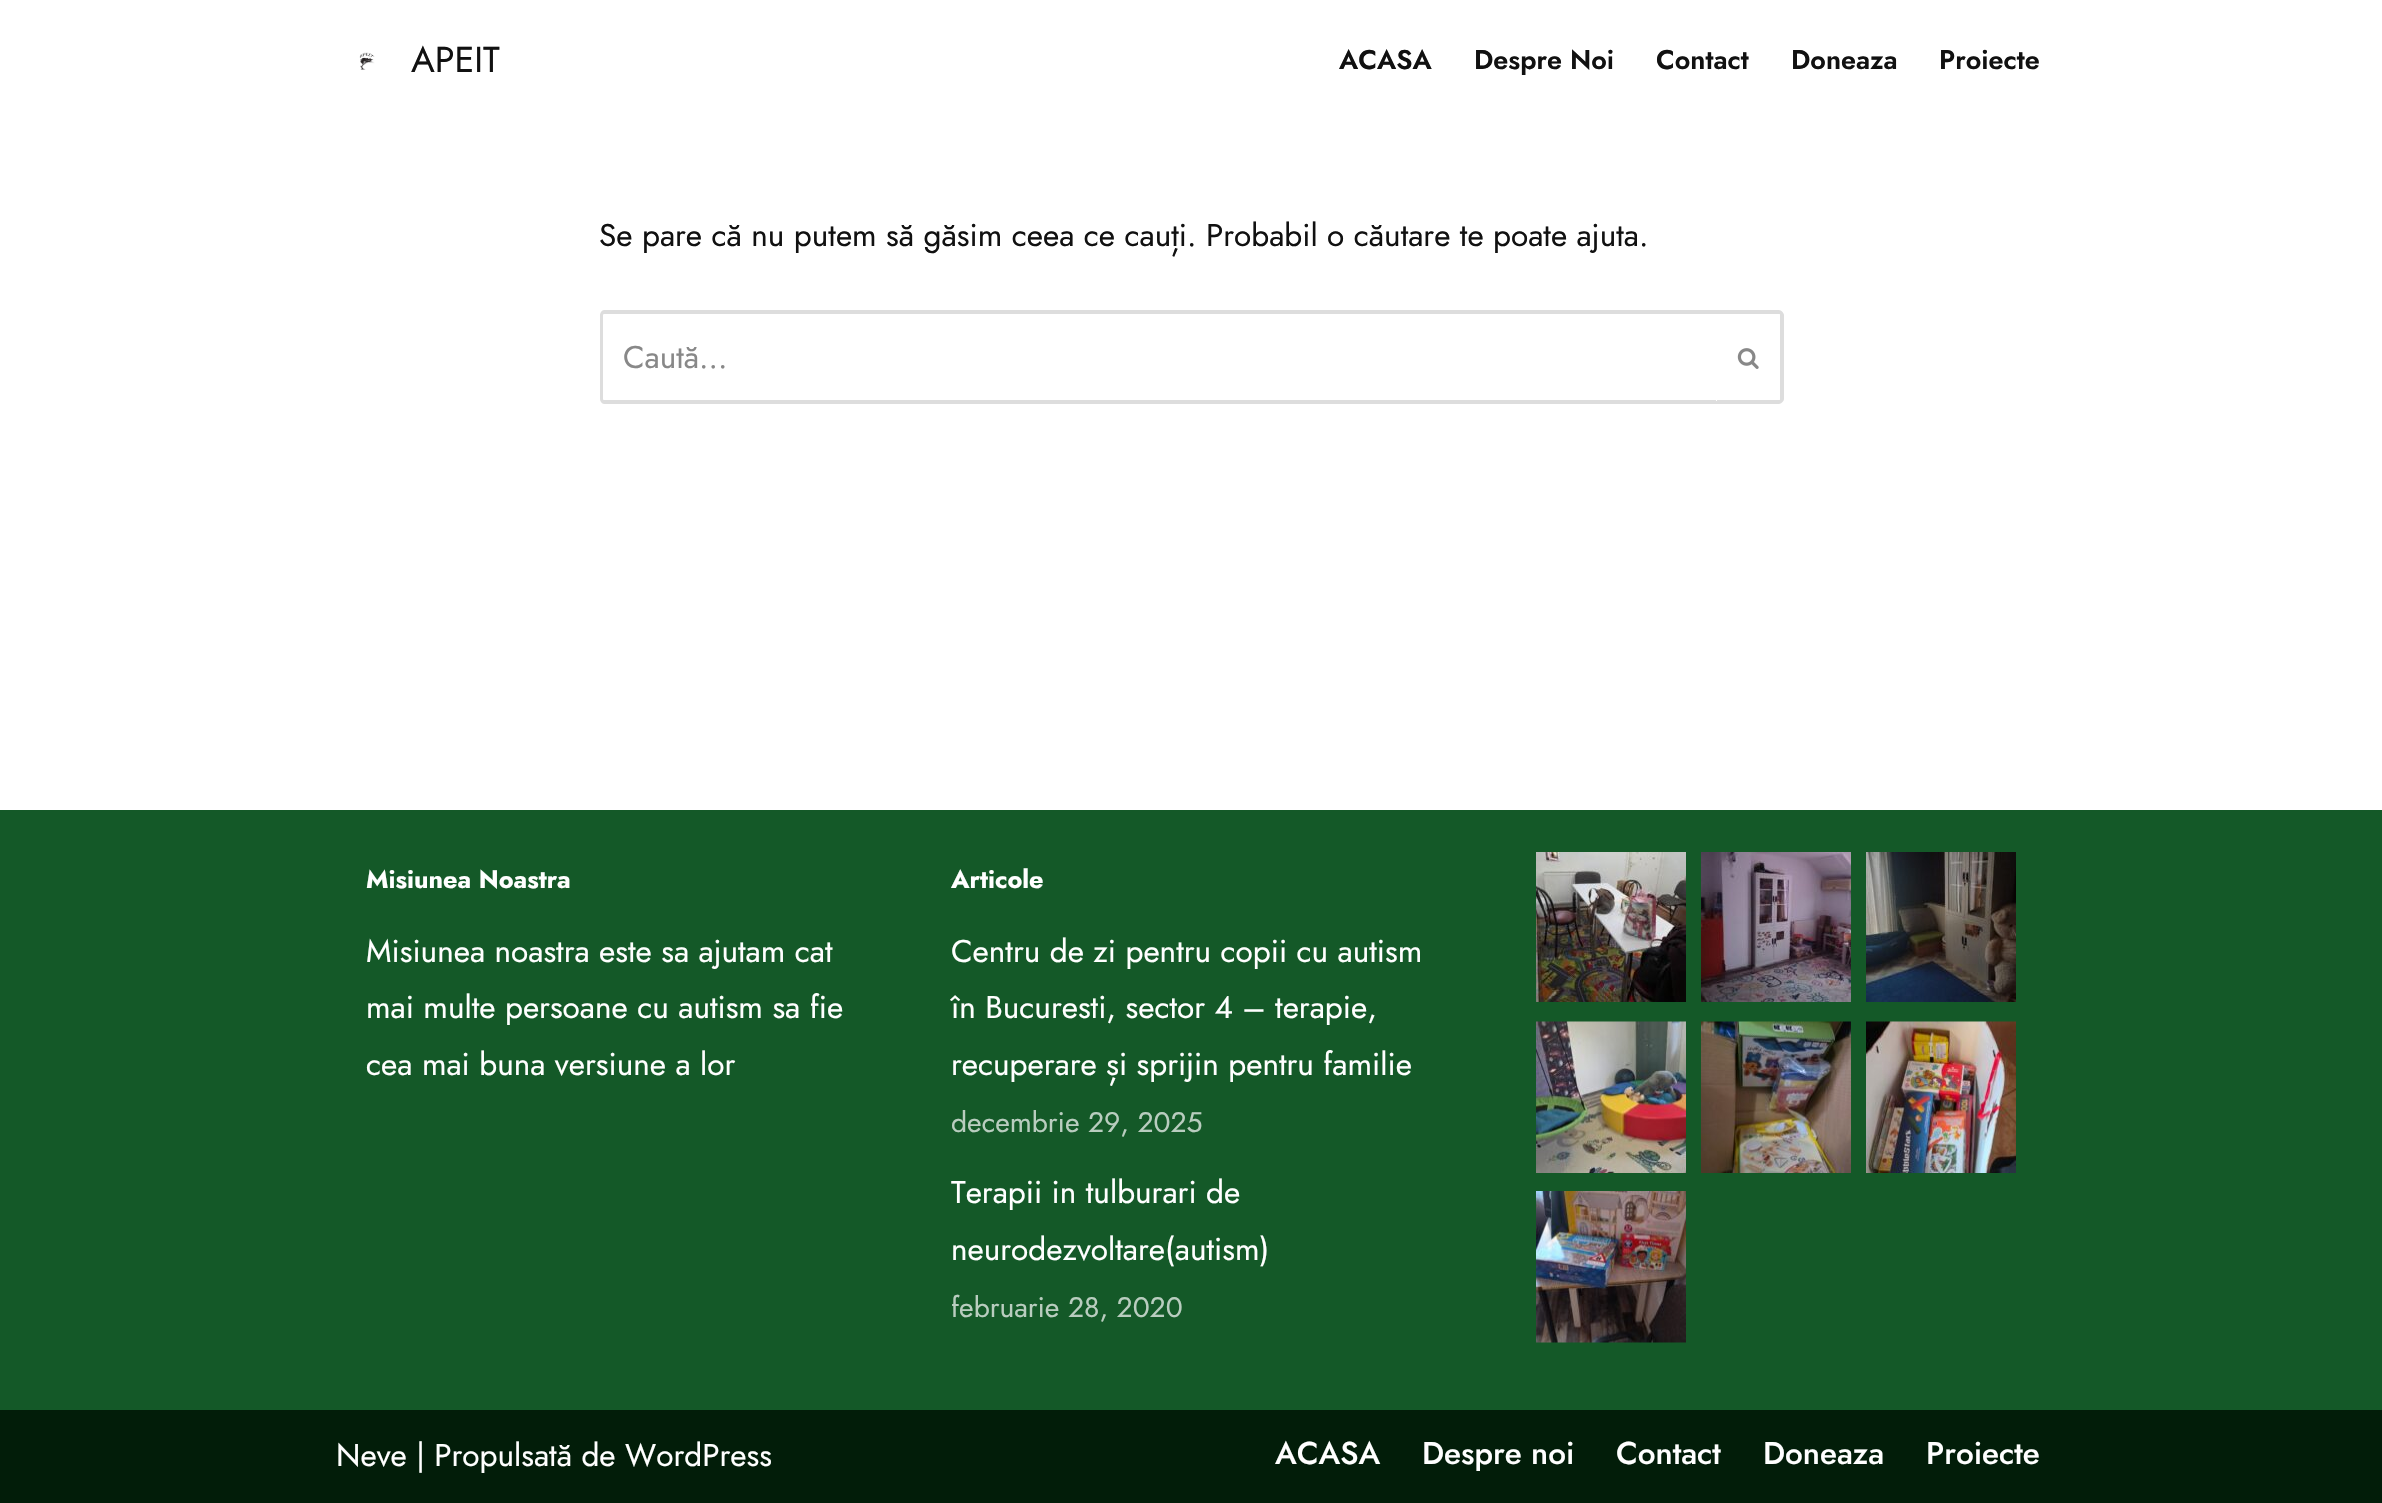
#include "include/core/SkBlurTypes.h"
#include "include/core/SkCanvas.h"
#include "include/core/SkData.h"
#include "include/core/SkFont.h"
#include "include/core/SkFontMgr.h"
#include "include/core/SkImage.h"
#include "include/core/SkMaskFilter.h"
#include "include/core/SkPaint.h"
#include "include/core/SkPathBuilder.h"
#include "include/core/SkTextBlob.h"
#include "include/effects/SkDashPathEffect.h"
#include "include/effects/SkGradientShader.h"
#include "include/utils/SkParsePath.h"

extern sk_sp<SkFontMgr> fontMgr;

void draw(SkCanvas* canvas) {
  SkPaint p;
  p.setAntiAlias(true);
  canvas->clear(SK_ColorWHITE);
  canvas->drawImageRect(SkImages::DeferredFromEncodedData(SkData::MakeFromFileName("images/1.png")), SkRect::MakeLTRB(359, 52, 375, 70), SkSamplingOptions());
  p.setColor(SkColorSetRGB(221, 221, 221));
  canvas->drawPath(SkPathBuilder(SkPathFillType::kEvenOdd).moveTo(604, 310).lineTo(1716, 310).lineTo(1716, 404).lineTo(604, 404).cubicTo(602, 404, 600, 401, 600, 399).lineTo(600, 315).cubicTo(600, 313, 602, 310, 604, 310).close().moveTo(604, 314).lineTo(1716, 314).lineTo(1716, 400).lineTo(604, 400).cubicTo(604, 400, 603, 400, 603, 399).lineTo(603, 315).cubicTo(603, 314, 604, 314, 604, 314).close().detach(), p);
  canvas->drawPath(SkPathBuilder(SkPathFillType::kEvenOdd).moveTo(1716, 310).lineTo(1779, 310).cubicTo(1781, 310, 1784, 313, 1784, 315).lineTo(1784, 399).cubicTo(1784, 401, 1781, 404, 1779, 404).lineTo(1716, 404).close().moveTo(1716, 314).lineTo(1779, 314).cubicTo(1780, 314, 1780, 314, 1780, 315).lineTo(1780, 399).cubicTo(1780, 400, 1780, 400, 1779, 400).lineTo(1716, 400).close().detach(), p);
  canvas->drawImageRect(SkImages::DeferredFromEncodedData(SkData::MakeFromFileName("images/2.png")), SkRect::MakeLTRB(1737, 348, 1759, 369), SkSamplingOptions());
  p.setColor(SK_ColorWHITE);
  canvas->drawRect(SkRect::MakeLTRB(1716, 400, 1717, 401), p);
  p.setColor(SkColorSetRGB(20, 89, 40));
  canvas->drawRect(SkRect::MakeLTRB(0, 810, 2382, 1410), p);
  canvas->drawImageRect(SkImages::DeferredFromEncodedData(SkData::MakeFromFileName("images/3.png")), SkRect::MakeLTRB(1536, 852, 1686, 1002), SkSamplingOptions());
  canvas->drawImageRect(SkImages::DeferredFromEncodedData(SkData::MakeFromFileName("images/4.png")), SkRect::MakeLTRB(1701, 852, 1851, 1002), SkSamplingOptions());
  canvas->drawImageRect(SkImages::DeferredFromEncodedData(SkData::MakeFromFileName("images/5.png")), SkRect::MakeLTRB(1866, 852, 2016, 1002), SkSamplingOptions());
  canvas->drawImageRect(SkImages::DeferredFromEncodedData(SkData::MakeFromFileName("images/6.png")), SkRect::MakeLTRB(1536, 1021, 1686, 1173), SkSamplingOptions());
  canvas->drawImageRect(SkImages::DeferredFromEncodedData(SkData::MakeFromFileName("images/7.png")), SkRect::MakeLTRB(1701, 1021, 1851, 1173), SkSamplingOptions());
  canvas->drawImageRect(SkImages::DeferredFromEncodedData(SkData::MakeFromFileName("images/8.png")), SkRect::MakeLTRB(1866, 1021, 2016, 1173), SkSamplingOptions());
  canvas->drawImageRect(SkImages::DeferredFromEncodedData(SkData::MakeFromFileName("images/9.png")), SkRect::MakeLTRB(1536, 1191, 1686, 1343), SkSamplingOptions());
  p.setColor(SkColorSetRGB(2, 29, 9));
  canvas->drawRect(SkRect::MakeLTRB(0, 1410, 2382, 1503), p);
  SkFont font1(fontMgr->matchFamilyStyle("Jost", SkFontStyle::Normal()), 36);
  font1.setSubpixel(true);
  p.setColor(SkColorSetRGB(17, 17, 17));
  canvas->drawString("APEIT", 411, 72, font1, p);
  SkFont font2(fontMgr->matchFamilyStyle("Jost", SkFontStyle(600, SkFontStyle::kNormal_Width, SkFontStyle::kUpright_Slant)), 27);
  font2.setSubpixel(true);
  canvas->drawString("ACASA", 1339, 69, font2, p);
  canvas->drawString("Despre Noi", 1474, 69, font2, p);
  canvas->drawString("Contact", 1656, 69, font2, p);
  canvas->drawString("Doneaza", 1791, 69, font2, p);
  canvas->drawString("Proiecte", 1939, 69, font2, p);
  SkFont font3(fontMgr->matchFamilyStyle("Jost", SkFontStyle::Normal()), 31.5f);
  font3.setSubpixel(true);
  canvas->drawString("Se pare că nu putem să găsim ceea ce cauți. Probabil o căutare te poate ajuta.", 599, 246, font3, p);
  p.setColor(SkColorSetRGB(136, 136, 136));
  canvas->drawString("Caută...", 623, 368, font3, p);
  SkFont font4(fontMgr->matchFamilyStyle("Jost", SkFontStyle::Bold()), 25.25f);
  font4.setSubpixel(true);
  p.setColor(SK_ColorWHITE);
  canvas->drawString("Misiunea Noastra", 366, 888, font4, p);
  canvas->drawString("Misiunea noastra este sa ajutam cat", 366, 962, font3, p);
  canvas->drawString("mai multe persoane cu autism sa fie", 366, 1018, font3, p);
  canvas->drawString("cea mai buna versiune a lor", 366, 1075, font3, p);
  canvas->drawString("Articole", 951, 888, font4, p);
  canvas->drawString("Centru de zi pentru copii cu autism", 951, 962, font3, p);
  canvas->drawString("în Bucuresti, sector 4 – terapie,", 951, 1018, font3, p);
  canvas->drawString("recuperare și sprijin pentru familie", 951, 1075, font3, p);
  SkFont font5(fontMgr->matchFamilyStyle("Jost", SkFontStyle::Normal()), 28.25f);
  font5.setSubpixel(true);
  p.setColor(SkColorSetRGB(185, 205, 191));
  canvas->drawString("decembrie 29, 2025", 951, 1132, font5, p);
  p.setColor(SK_ColorWHITE);
  canvas->drawString("Terapii in tulburari de", 951, 1203, font3, p);
  canvas->drawString("neurodezvoltare(autism)", 951, 1260, font3, p);
  p.setColor(SkColorSetRGB(185, 205, 191));
  canvas->drawString("februarie 28, 2020", 951, 1317, font5, p);
  p.setColor(SK_ColorWHITE);
  canvas->drawString("Neve | Propulsată de WordPress", 336, 1466, font3, p);
  SkFont font6(fontMgr->matchFamilyStyle("Jost", SkFontStyle(500, SkFontStyle::kNormal_Width, SkFontStyle::kUpright_Slant)), 31.5f);
  font6.setSubpixel(true);
  canvas->drawString("ACASA", 1275, 1464, font6, p);
  canvas->drawString("Despre noi", 1422, 1464, font6, p);
  canvas->drawString("Contact", 1616, 1464, font6, p);
  canvas->drawString("Doneaza", 1763, 1464, font6, p);
  canvas->drawString("Proiecte", 1926, 1464, font6, p);
}
